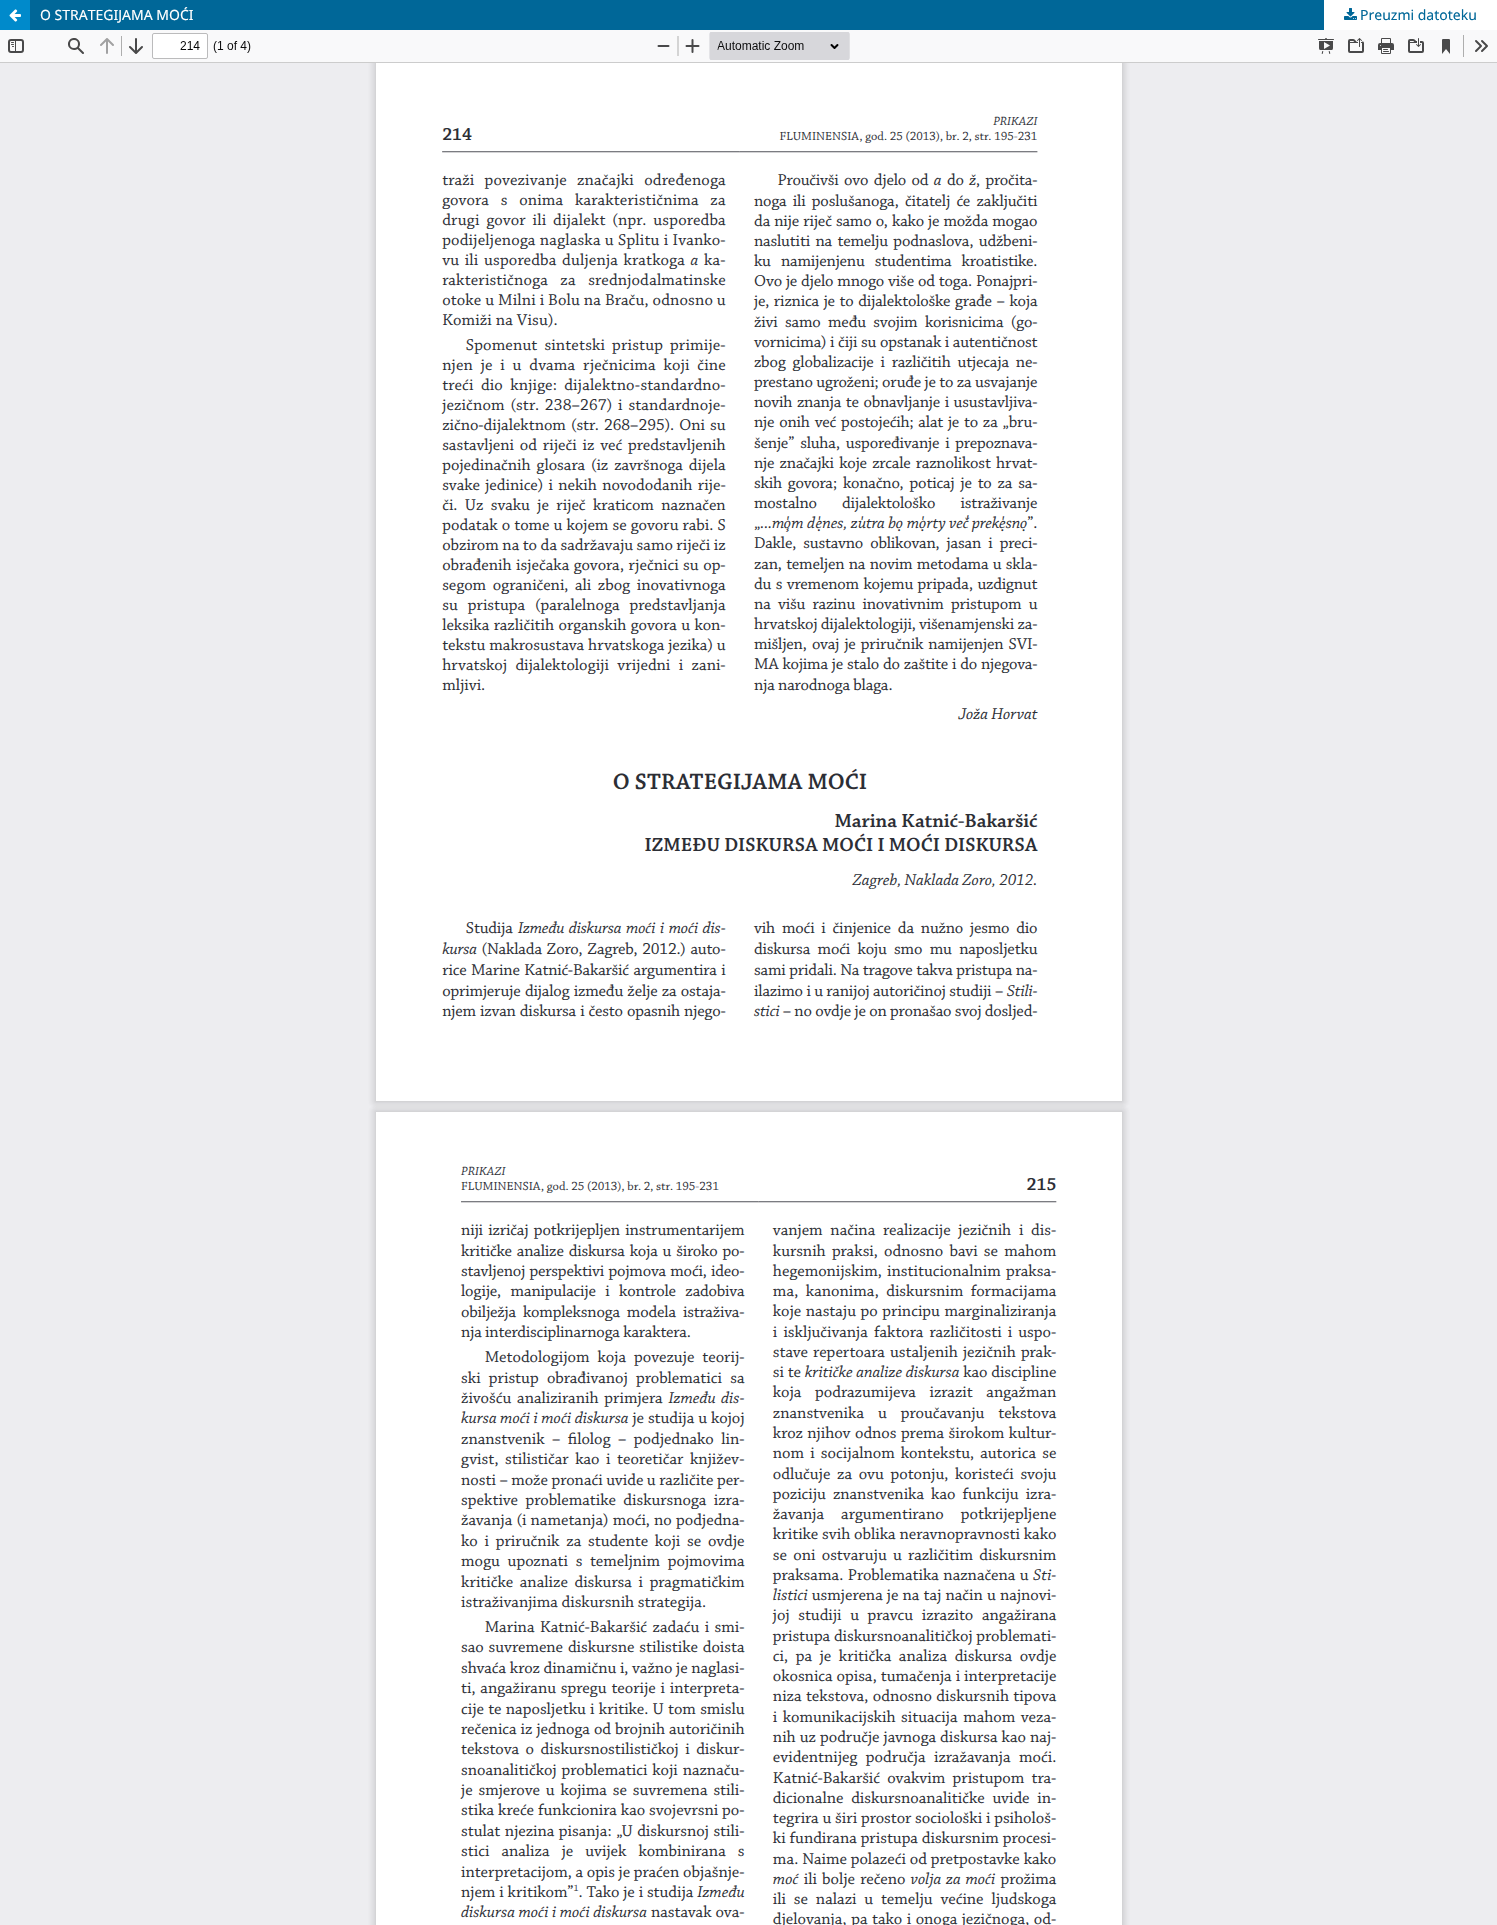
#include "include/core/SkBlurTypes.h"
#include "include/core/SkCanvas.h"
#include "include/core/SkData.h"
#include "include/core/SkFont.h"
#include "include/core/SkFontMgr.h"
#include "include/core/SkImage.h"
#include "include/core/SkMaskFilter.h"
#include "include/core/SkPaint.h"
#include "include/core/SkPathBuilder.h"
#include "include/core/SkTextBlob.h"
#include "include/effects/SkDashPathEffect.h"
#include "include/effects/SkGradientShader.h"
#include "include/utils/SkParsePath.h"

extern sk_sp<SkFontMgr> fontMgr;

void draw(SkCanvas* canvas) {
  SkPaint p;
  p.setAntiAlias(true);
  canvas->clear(SK_ColorWHITE);
  p.setColor(SkColorSetRGB(0, 103, 152));
  canvas->drawRect(SkRect::MakeLTRB(30, 0, 1324, 30), p);
  p.setColor(SkColorSetRGB(0, 138, 203));
  canvas->drawRect(SkRect::MakeLTRB(0, 0, 30, 30), p);
  canvas->drawImageRect(SkImages::DeferredFromEncodedData(SkData::MakeFromFileName("images/1.png")), SkRect::MakeLTRB(9, 9, 21, 22), SkSamplingOptions());
  canvas->drawImageRect(SkImages::DeferredFromEncodedData(SkData::MakeFromFileName("images/2.png")), SkRect::MakeLTRB(1344, 8, 1357, 20), SkSamplingOptions());
  canvas->drawImageRect(SkImages::DeferredFromEncodedData(SkData::MakeFromFileName("images/3.png")), SkRect::MakeLTRB(0, 30, 1497, 1925), SkSamplingOptions());
  SkFont font1(fontMgr->matchFamilyStyle("Noto Sans", SkFontStyle::Normal()), 14);
  font1.setSubpixel(true);
  p.setColor(SK_ColorWHITE);
  canvas->drawString("O STRATEGIJAMA MOĆI", 40, 20, font1, p);
  p.setColor(SkColorSetRGB(0, 103, 152));
  canvas->drawString("Preuzmi datoteku", 1360, 20, font1, p);
}
